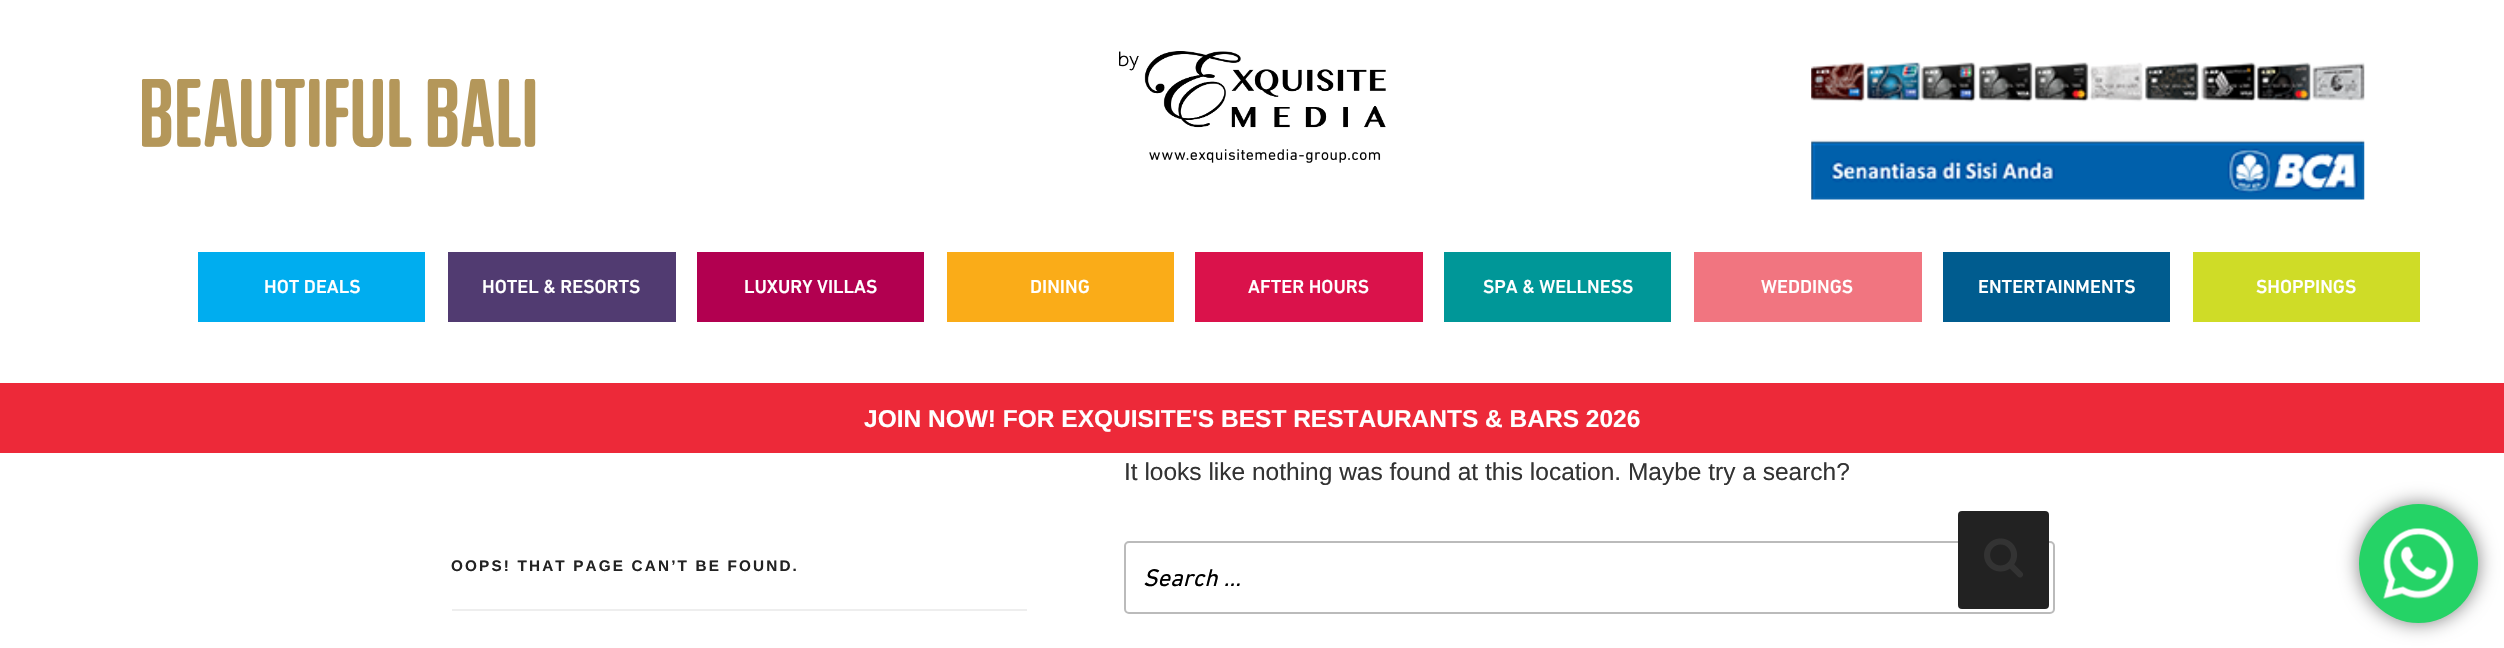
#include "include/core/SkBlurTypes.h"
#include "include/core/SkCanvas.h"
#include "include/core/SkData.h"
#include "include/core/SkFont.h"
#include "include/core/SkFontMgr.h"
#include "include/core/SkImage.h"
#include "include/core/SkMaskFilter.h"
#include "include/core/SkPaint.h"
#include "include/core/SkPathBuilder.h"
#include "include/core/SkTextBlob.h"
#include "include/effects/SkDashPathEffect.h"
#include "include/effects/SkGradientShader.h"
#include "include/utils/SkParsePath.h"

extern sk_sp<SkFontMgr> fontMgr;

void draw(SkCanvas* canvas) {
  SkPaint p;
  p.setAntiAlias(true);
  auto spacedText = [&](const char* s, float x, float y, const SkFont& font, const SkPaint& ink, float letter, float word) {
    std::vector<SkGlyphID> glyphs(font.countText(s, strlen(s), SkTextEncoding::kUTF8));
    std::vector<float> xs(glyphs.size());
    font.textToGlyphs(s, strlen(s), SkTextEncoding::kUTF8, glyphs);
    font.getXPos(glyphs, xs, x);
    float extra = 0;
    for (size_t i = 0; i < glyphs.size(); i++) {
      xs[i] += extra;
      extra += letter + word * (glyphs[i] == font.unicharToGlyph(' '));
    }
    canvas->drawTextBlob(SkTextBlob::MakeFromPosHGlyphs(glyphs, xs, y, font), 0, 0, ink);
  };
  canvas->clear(SK_ColorWHITE);
  canvas->drawImageRect(SkImages::DeferredFromEncodedData(SkData::MakeFromFileName("images/1.png")), SkRect::MakeLTRB(142, 79, 536, 147), SkSamplingOptions());
  canvas->drawImageRect(SkImages::DeferredFromEncodedData(SkData::MakeFromFileName("images/2.png")), SkRect::MakeLTRB(1119, 51, 1386, 163), SkSamplingOptions());
  canvas->drawImageRect(SkImages::DeferredFromEncodedData(SkData::MakeFromFileName("images/3.png")), SkRect::MakeLTRB(1811, 62, 2365, 200), SkSamplingOptions());
  p.setColor(SkColorSetRGB(0, 173, 239));
  canvas->drawRect(SkRect::MakeLTRB(198, 252, 425, 322), p);
  p.setColor(SkColorSetRGB(81, 59, 113));
  canvas->drawRect(SkRect::MakeLTRB(448, 252, 676, 322), p);
  p.setColor(SkColorSetRGB(178, 0, 80));
  canvas->drawRect(SkRect::MakeLTRB(697, 252, 924, 322), p);
  p.setColor(SkColorSetRGB(250, 172, 24));
  canvas->drawRect(SkRect::MakeLTRB(947, 252, 1174, 322), p);
  p.setColor(SkColorSetRGB(218, 18, 75));
  canvas->drawRect(SkRect::MakeLTRB(1195, 252, 1423, 322), p);
  p.setColor(SkColorSetRGB(0, 151, 152));
  canvas->drawRect(SkRect::MakeLTRB(1444, 252, 1671, 322), p);
  p.setColor(SkColorSetRGB(241, 117, 128));
  canvas->drawRect(SkRect::MakeLTRB(1694, 252, 1922, 322), p);
  p.setColor(SkColorSetRGB(0, 92, 143));
  canvas->drawRect(SkRect::MakeLTRB(1943, 252, 2170, 322), p);
  p.setColor(SkColorSetRGB(207, 220, 39));
  canvas->drawRect(SkRect::MakeLTRB(2193, 252, 2420, 322), p);
  p.setColor(SkColorSetRGB(237, 41, 57));
  canvas->drawRect(SkRect::MakeLTRB(0, 383, 2504, 453), p);
  p.setColor(SkColorSetRGB(238, 238, 238));
  canvas->drawRect(SkRect::MakeLTRB(452, 609, 1027, 611), p);
  p.setStyle(SkPaint::kStroke_Style);
  p.setStrokeWidth(2);
  p.setColor(SkColorSetRGB(187, 187, 187));
  canvas->drawRoundRect(SkRect::MakeLTRB(1125, 542, 2054, 613), 4, 4, p);
  p.setStyle(SkPaint::kFill_Style);
  p.setColor(SkColorSetRGB(34, 34, 34));
  canvas->drawRoundRect(SkRect::MakeLTRB(1958, 511, 2049, 609), 4, 4, p);
  canvas->drawImageRect(SkImages::DeferredFromEncodedData(SkData::MakeFromFileName("images/4.png")), SkRect::MakeLTRB(1984, 538, 2023, 578), SkSamplingOptions());
  p.setColor(SkColorSetARGB(128, 0, 0, 0));
  p.setMaskFilter(SkMaskFilter::MakeBlur(kNormal_SkBlurStyle, 9.5f));
  canvas->drawRoundRect(SkRect::MakeLTRB(2359, 504, 2478, 623), 59.5f, 59.5f, p);
  p.setMaskFilter(nullptr);
  p.setColor(SkColorSetRGB(37, 211, 102));
  canvas->drawCircle(2418.5f, 563.5f, 59.5f, p);
  canvas->drawImageRect(SkImages::DeferredFromEncodedData(SkData::MakeFromFileName("images/5.png")), SkRect::MakeLTRB(2383, 528, 2454, 599), SkSamplingOptions());
  SkFont font1(fontMgr->matchFamilyStyle("DIN Next", SkFontStyle(500, SkFontStyle::kNormal_Width, SkFontStyle::kUpright_Slant)), 19.25f);
  font1.setSubpixel(true);
  p.setColor(SK_ColorWHITE);
  canvas->drawString("HOT DEALS", 264, 293, font1, p);
  canvas->drawString("HOTEL & RESORTS", 482, 293, font1, p);
  canvas->drawString("LUXURY VILLAS", 744, 293, font1, p);
  canvas->drawString("DINING", 1030, 293, font1, p);
  canvas->drawString("AFTER HOURS", 1248, 293, font1, p);
  canvas->drawString("SPA & WELLNESS", 1483, 293, font1, p);
  canvas->drawString("WEDDINGS", 1761, 293, font1, p);
  canvas->drawString("ENTERTAINMENTS", 1978, 293, font1, p);
  canvas->drawString("SHOPPINGS", 2256, 293, font1, p);
  SkFont font2(fontMgr->matchFamilyStyle("Liberation Sans", SkFontStyle::Bold()), 24.5f);
  font2.setSubpixel(true);
  canvas->drawString("JOIN NOW! FOR EXQUISITE'S BEST RESTAURANTS & BARS 2026", 864, 427, font2, p);
  SkFont font3(fontMgr->matchFamilyStyle("Liberation Sans", SkFontStyle::Bold()), 15.3f);
  font3.setSubpixel(true);
  p.setColor(SkColorSetRGB(34, 34, 34));
  spacedText("OOPS! THAT PAGE CAN’T BE FOUND.", 451, 571, font3, p, 2.15f, 0);
  SkFont font4(fontMgr->matchFamilyStyle("Liberation Sans", SkFontStyle::Normal()), 24.5f);
  font4.setSubpixel(true);
  p.setColor(SkColorSetRGB(51, 51, 51));
  canvas->drawString("It looks like nothing was found at this location. Maybe try a search?", 1124, 480, font4, p);
  SkFont font5(fontMgr->matchFamilyStyle("DIN Next", SkFontStyle::Italic()), 24.5f);
  font5.setSubpixel(true);
  p.setColor(SK_ColorBLACK);
  canvas->drawString("Search …", 1143, 586, font5, p);
}
